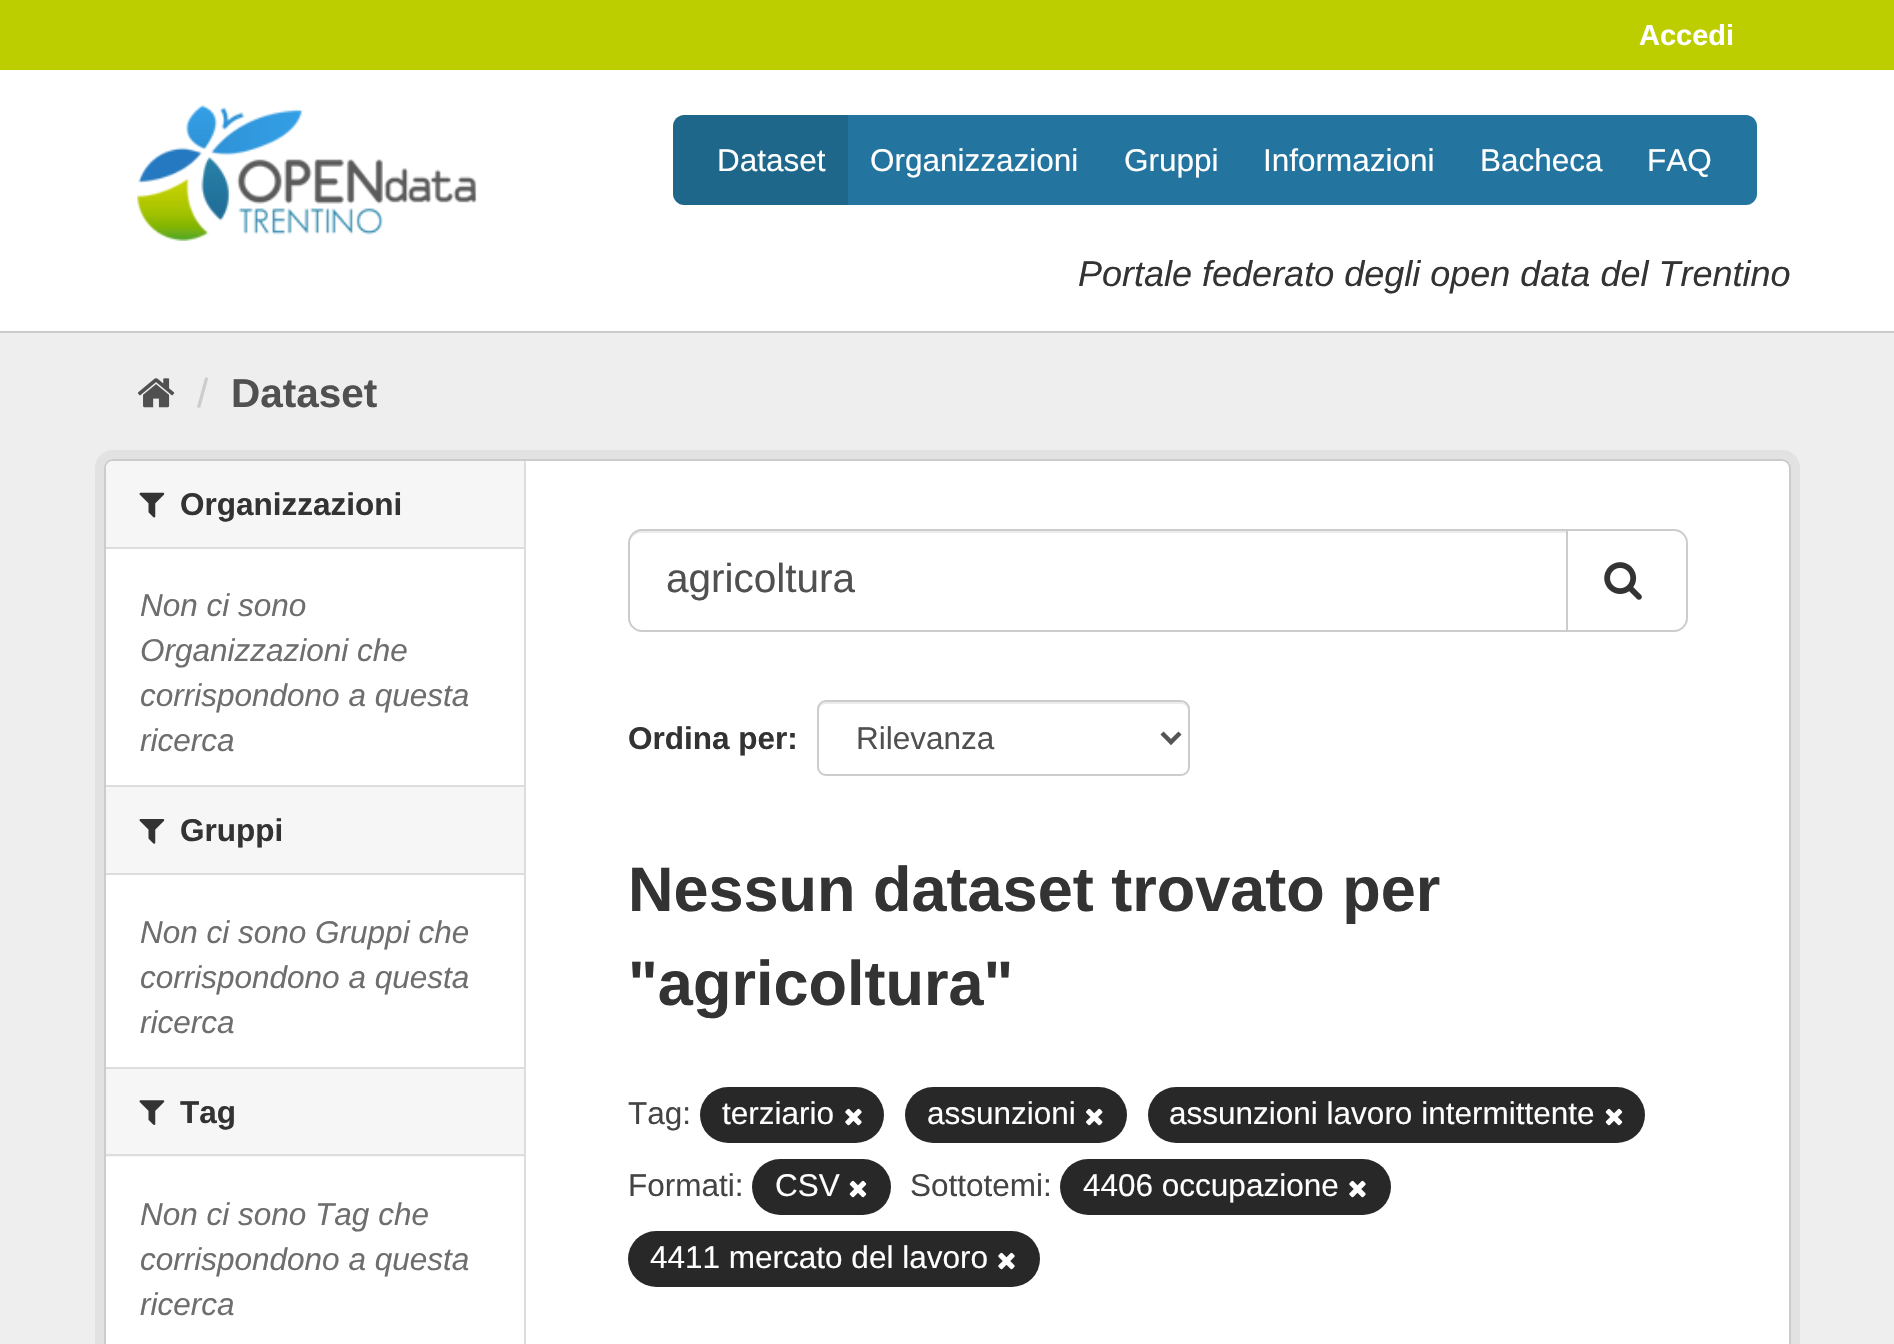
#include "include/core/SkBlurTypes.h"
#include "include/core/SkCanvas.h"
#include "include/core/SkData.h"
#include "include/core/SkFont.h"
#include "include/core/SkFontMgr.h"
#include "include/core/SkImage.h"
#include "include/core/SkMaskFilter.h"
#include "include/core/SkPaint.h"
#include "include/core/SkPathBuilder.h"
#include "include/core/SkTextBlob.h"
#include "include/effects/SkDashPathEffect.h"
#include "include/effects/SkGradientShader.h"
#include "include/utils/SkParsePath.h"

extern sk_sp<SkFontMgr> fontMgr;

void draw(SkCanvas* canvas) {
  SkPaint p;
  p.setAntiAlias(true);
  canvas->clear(SkColorSetRGB(188, 205, 0));
  p.setColor(SK_ColorWHITE);
  canvas->drawRect(SkRect::MakeLTRB(0, 70, 1894, 331), p);
  p.setColor(SkColorSetRGB(204, 204, 204));
  canvas->drawRect(SkRect::MakeLTRB(0, 331, 1894, 333), p);
  p.setColor(SkColorSetRGB(30, 102, 138));
  canvas->drawPath(SkPathBuilder().moveTo(684, 115).lineTo(848, 115).lineTo(848, 205).lineTo(684, 205).cubicTo(678, 205, 673, 200, 673, 194).lineTo(673, 126).cubicTo(673, 120, 678, 115, 684, 115).close().detach(), p);
  p.setColor(SkColorSetRGB(35, 117, 159));
  canvas->drawRect(SkRect::MakeLTRB(848, 115, 1625, 205), p);
  canvas->drawPath(SkPathBuilder().moveTo(1625, 115).lineTo(1746, 115).cubicTo(1752, 115, 1757, 120, 1757, 126).lineTo(1757, 194).cubicTo(1757, 200, 1752, 205, 1746, 205).lineTo(1625, 205).close().detach(), p);
  canvas->drawImageRect(SkImages::DeferredFromEncodedData(SkData::MakeFromFileName("images/1.png")), SkRect::MakeLTRB(137, 105, 477, 241), SkSamplingOptions());
  p.setColor(SkColorSetRGB(238, 238, 238));
  canvas->drawRect(SkRect::MakeLTRB(0, 333, 1894, 1344), p);
  canvas->drawImageRect(SkImages::DeferredFromEncodedData(SkData::MakeFromFileName("images/2.png")), SkRect::MakeLTRB(137, 378, 175, 408), SkSamplingOptions());
  p.setStyle(SkPaint::kStroke_Style);
  p.setStrokeWidth(9);
  p.setColor(SkColorSetRGB(226, 226, 226));
  canvas->drawRoundRect(SkRect::MakeLTRB(99.5f, 454.5f, 1795.5f, 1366.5f), 13.5f, 13.5f, p);
  p.setStyle(SkPaint::kFill_Style);
  p.setColor(SK_ColorWHITE);
  canvas->drawRoundRect(SkRect::MakeLTRB(105, 460, 1790, 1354), 8, 8, p);
  p.setStyle(SkPaint::kStroke_Style);
  p.setStrokeWidth(2);
  p.setColor(SkColorSetRGB(204, 204, 204));
  canvas->drawRoundRect(SkRect::MakeLTRB(105, 460, 1790, 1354), 8, 8, p);
  p.setStyle(SkPaint::kFill_Style);
  p.setColor(SkColorSetRGB(246, 246, 246));
  canvas->drawPath(SkPathBuilder().moveTo(113, 461).lineTo(524, 461).lineTo(524, 549).lineTo(106, 549).lineTo(106, 468).cubicTo(106, 464, 109, 461, 113, 461).close().detach(), p);
  p.setColor(SkColorSetRGB(221, 221, 221));
  canvas->drawRect(SkRect::MakeLTRB(106, 547, 524, 549), p);
  canvas->drawImageRect(SkImages::DeferredFromEncodedData(SkData::MakeFromFileName("images/3.png")), SkRect::MakeLTRB(139, 492, 165, 518), SkSamplingOptions());
  p.setColor(SkColorSetRGB(246, 246, 246));
  canvas->drawRect(SkRect::MakeLTRB(106, 787, 524, 873), p);
  p.setColor(SkColorSetRGB(221, 221, 221));
  canvas->drawRect(SkRect::MakeLTRB(106, 785, 524, 787), p);
  canvas->drawRect(SkRect::MakeLTRB(106, 873, 524, 875), p);
  canvas->drawImageRect(SkImages::DeferredFromEncodedData(SkData::MakeFromFileName("images/4.png")), SkRect::MakeLTRB(139, 819, 165, 844), SkSamplingOptions());
  p.setColor(SkColorSetRGB(246, 246, 246));
  canvas->drawRect(SkRect::MakeLTRB(106, 1069, 524, 1157), p);
  p.setColor(SkColorSetRGB(221, 221, 221));
  canvas->drawRect(SkRect::MakeLTRB(106, 1067, 524, 1069), p);
  canvas->drawRect(SkRect::MakeLTRB(106, 1154, 524, 1156), p);
  canvas->drawImageRect(SkImages::DeferredFromEncodedData(SkData::MakeFromFileName("images/5.png")), SkRect::MakeLTRB(139, 1100, 165, 1125), SkSamplingOptions());
  canvas->drawRect(SkRect::MakeLTRB(524, 461, 526, 1344), p);
  p.setColor(SkColorSetRGB(236, 236, 236));
  canvas->drawPath(SkPathBuilder().moveTo(641, 533).lineTo(1566, 533).lineTo(1566, 531).lineTo(641, 531).cubicTo(634, 531, 630, 537, 630, 544).cubicTo(630, 538, 635, 533, 641, 533).close().detach(), p);
  p.setStyle(SkPaint::kStroke_Style);
  p.setColor(SkColorSetRGB(204, 204, 204));
  canvas->drawPath(SkPathBuilder().moveTo(642, 530).lineTo(1567, 530).lineTo(1567, 631).lineTo(642, 631).cubicTo(635, 631, 629, 625, 629, 618).lineTo(629, 543).cubicTo(629, 536, 635, 530, 642, 530).close().detach(), p);
  p.setStyle(SkPaint::kFill_Style);
  p.setColor(SK_ColorWHITE);
  canvas->drawPath(SkPathBuilder().moveTo(1567, 530).lineTo(1674, 530).cubicTo(1681, 530, 1687, 536, 1687, 543).lineTo(1687, 618).cubicTo(1687, 625, 1681, 631, 1674, 631).lineTo(1567, 631).close().detach(), p);
  p.setStyle(SkPaint::kStroke_Style);
  p.setColor(SkColorSetRGB(204, 204, 204));
  canvas->drawPath(SkPathBuilder().moveTo(1567, 530).lineTo(1674, 530).cubicTo(1681, 530, 1687, 536, 1687, 543).lineTo(1687, 618).cubicTo(1687, 625, 1681, 631, 1674, 631).lineTo(1567, 631).close().detach(), p);
  canvas->drawImageRect(SkImages::DeferredFromEncodedData(SkData::MakeFromFileName("images/6.png")), SkRect::MakeLTRB(1604, 562, 1642, 600), SkSamplingOptions());
  p.setStyle(SkPaint::kFill_Style);
  p.setColor(SkColorSetRGB(236, 236, 236));
  canvas->drawPath(SkPathBuilder().moveTo(826, 704).lineTo(1181, 704).cubicTo(1185, 704, 1188, 707, 1188, 711).lineTo(1188, 709).cubicTo(1188, 705, 1185, 702, 1181, 702).lineTo(826, 702).cubicTo(822, 702, 819, 705, 819, 709).lineTo(819, 711).cubicTo(819, 707, 822, 704, 826, 704).close().detach(), p);
  p.setStyle(SkPaint::kStroke_Style);
  p.setColor(SkColorSetRGB(204, 204, 204));
  canvas->drawRoundRect(SkRect::MakeLTRB(818, 701, 1189, 775), 8, 8, p);
  p.setStrokeWidth(4.5f);
  p.setColor(SkColorSetRGB(85, 85, 85));
  canvas->drawPath(SkPathBuilder().moveTo(1162, 733).lineTo(1171, 742).lineTo(1180, 733).detach(), p);
  p.setStyle(SkPaint::kFill_Style);
  p.setColor(SkColorSetRGB(40, 40, 40));
  canvas->drawRoundRect(SkRect::MakeLTRB(700, 1087, 884, 1143), 28, 28, p);
  canvas->drawImageRect(SkImages::DeferredFromEncodedData(SkData::MakeFromFileName("images/7.png")), SkRect::MakeLTRB(845, 1108, 862, 1126), SkSamplingOptions());
  canvas->drawRoundRect(SkRect::MakeLTRB(905, 1087, 1127, 1143), 28, 28, p);
  canvas->drawImageRect(SkImages::DeferredFromEncodedData(SkData::MakeFromFileName("images/8.png")), SkRect::MakeLTRB(1086, 1108, 1103, 1126), SkSamplingOptions());
  canvas->drawRoundRect(SkRect::MakeLTRB(1148, 1087, 1645, 1143), 28, 28, p);
  canvas->drawImageRect(SkImages::DeferredFromEncodedData(SkData::MakeFromFileName("images/9.png")), SkRect::MakeLTRB(1605, 1108, 1623, 1126), SkSamplingOptions());
  canvas->drawRoundRect(SkRect::MakeLTRB(752, 1159, 891, 1215), 28, 28, p);
  canvas->drawImageRect(SkImages::DeferredFromEncodedData(SkData::MakeFromFileName("images/9.png")), SkRect::MakeLTRB(849, 1180, 867, 1198), SkSamplingOptions());
  canvas->drawRoundRect(SkRect::MakeLTRB(1060, 1159, 1391, 1215), 28, 28, p);
  canvas->drawImageRect(SkImages::DeferredFromEncodedData(SkData::MakeFromFileName("images/7.png")), SkRect::MakeLTRB(1349, 1180, 1366, 1198), SkSamplingOptions());
  canvas->drawRoundRect(SkRect::MakeLTRB(628, 1231, 1040, 1287), 28, 28, p);
  canvas->drawImageRect(SkImages::DeferredFromEncodedData(SkData::MakeFromFileName("images/7.png")), SkRect::MakeLTRB(998, 1252, 1015, 1270), SkSamplingOptions());
  SkFont font1(fontMgr->matchFamilyStyle("Liberation Sans", SkFontStyle::Bold()), 29);
  font1.setSubpixel(true);
  p.setColor(SK_ColorWHITE);
  canvas->drawString("Accedi", 1639, 45, font1, p);
  SkFont font2(fontMgr->matchFamilyStyle("Liberation Sans", SkFontStyle::Normal()), 31.5f);
  font2.setSubpixel(true);
  canvas->drawString("Dataset", 717, 171, font2, p);
  canvas->drawString("Organizzazioni", 870, 171, font2, p);
  canvas->drawString("Gruppi", 1124, 171, font2, p);
  canvas->drawString("Informazioni", 1263, 171, font2, p);
  canvas->drawString("Bacheca", 1480, 171, font2, p);
  canvas->drawString("FAQ", 1647, 171, font2, p);
  SkFont font3(fontMgr->matchFamilyStyle("Liberation Sans", SkFontStyle::Italic()), 36);
  font3.setSubpixel(true);
  p.setColor(SkColorSetRGB(51, 51, 51));
  canvas->drawString("Portale federato degli open data del Trentino", 1078, 286, font3, p);
  SkFont font4(fontMgr->matchFamilyStyle("Liberation Sans", SkFontStyle::Normal()), 40.5f);
  font4.setSubpixel(true);
  p.setColor(SkColorSetRGB(204, 204, 204));
  canvas->drawString("/", 197, 407, font4, p);
  SkFont font5(fontMgr->matchFamilyStyle("Liberation Sans", SkFontStyle::Bold()), 40.5f);
  font5.setSubpixel(true);
  p.setColor(SkColorSetRGB(80, 80, 80));
  canvas->drawString("Dataset", 231, 407, font5, p);
  SkFont font6(fontMgr->matchFamilyStyle("Liberation Sans", SkFontStyle::Bold()), 31.5f);
  font6.setSubpixel(true);
  p.setColor(SkColorSetRGB(51, 51, 51));
  canvas->drawString("Organizzazioni", 180, 515, font6, p);
  SkFont font7(fontMgr->matchFamilyStyle("Liberation Sans", SkFontStyle::Italic()), 31.5f);
  font7.setSubpixel(true);
  p.setColor(SkColorSetRGB(110, 110, 110));
  canvas->drawString("Non ci sono", 140, 616, font7, p);
  canvas->drawString("Organizzazioni che", 140, 661, font7, p);
  canvas->drawString("corrispondono a questa", 140, 706, font7, p);
  canvas->drawString("ricerca", 140, 751, font7, p);
  p.setColor(SkColorSetRGB(51, 51, 51));
  canvas->drawString("Gruppi", 180, 841, font6, p);
  p.setColor(SkColorSetRGB(110, 110, 110));
  canvas->drawString("Non ci sono Gruppi che", 140, 943, font7, p);
  canvas->drawString("corrispondono a questa", 140, 988, font7, p);
  canvas->drawString("ricerca", 140, 1033, font7, p);
  p.setColor(SkColorSetRGB(51, 51, 51));
  canvas->drawString("Tag", 180, 1123, font6, p);
  p.setColor(SkColorSetRGB(110, 110, 110));
  canvas->drawString("Non ci sono Tag che", 140, 1225, font7, p);
  canvas->drawString("corrispondono a questa", 140, 1270, font7, p);
  canvas->drawString("ricerca", 140, 1315, font7, p);
  p.setColor(SkColorSetRGB(80, 80, 80));
  canvas->drawString("agricoltura", 666, 592, font4, p);
  p.setColor(SkColorSetRGB(51, 51, 51));
  canvas->drawString("Ordina per:", 628, 749, font6, p);
  p.setColor(SkColorSetRGB(80, 80, 80));
  canvas->drawString("Rilevanza", 856, 749, font2, p);
  SkFont font8(fontMgr->matchFamilyStyle("Liberation Sans", SkFontStyle::Bold()), 63);
  font8.setSubpixel(true);
  p.setColor(SkColorSetRGB(51, 51, 51));
  canvas->drawString("Nessun dataset trovato per", 628, 911, font8, p);
  canvas->drawString("\"agricoltura\"", 628, 1005, font8, p);
  p.setColor(SkColorSetRGB(68, 68, 68));
  canvas->drawString("Tag:", 628, 1124, font2, p);
  p.setColor(SK_ColorWHITE);
  canvas->drawString("terziario", 722, 1124, font2, p);
  canvas->drawString("assunzioni", 927, 1124, font2, p);
  canvas->drawString("assunzioni lavoro intermittente", 1169, 1124, font2, p);
  p.setColor(SkColorSetRGB(68, 68, 68));
  canvas->drawString("Formati:", 628, 1196, font2, p);
  p.setColor(SK_ColorWHITE);
  canvas->drawString("CSV", 775, 1196, font2, p);
  p.setColor(SkColorSetRGB(68, 68, 68));
  canvas->drawString("Sottotemi:", 910, 1196, font2, p);
  p.setColor(SK_ColorWHITE);
  canvas->drawString("4406 occupazione", 1083, 1196, font2, p);
  canvas->drawString("4411 mercato del lavoro", 650, 1268, font2, p);
}
